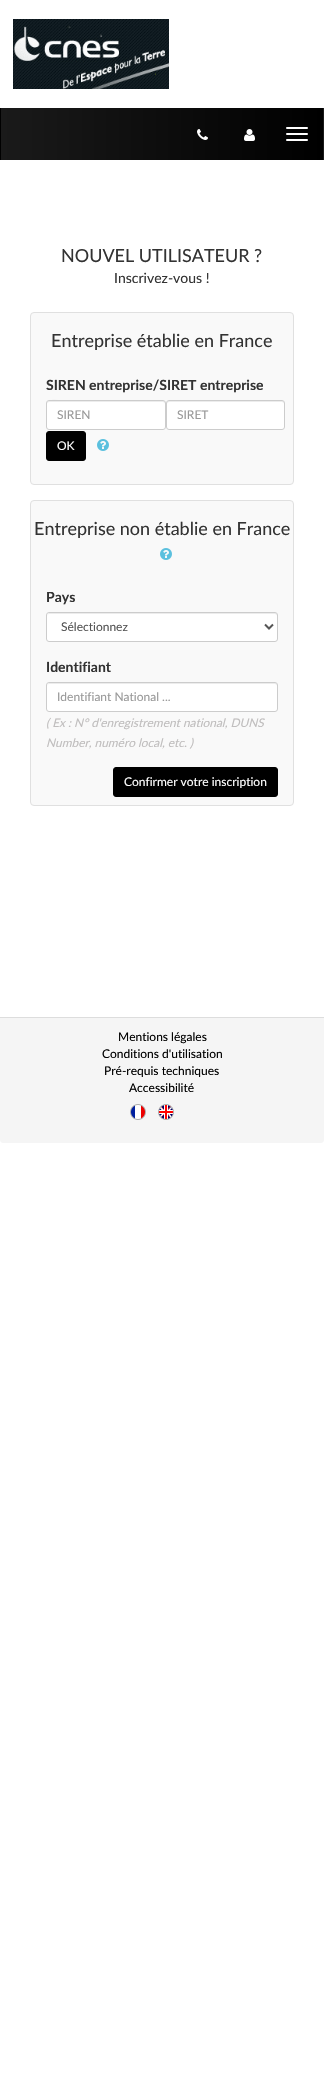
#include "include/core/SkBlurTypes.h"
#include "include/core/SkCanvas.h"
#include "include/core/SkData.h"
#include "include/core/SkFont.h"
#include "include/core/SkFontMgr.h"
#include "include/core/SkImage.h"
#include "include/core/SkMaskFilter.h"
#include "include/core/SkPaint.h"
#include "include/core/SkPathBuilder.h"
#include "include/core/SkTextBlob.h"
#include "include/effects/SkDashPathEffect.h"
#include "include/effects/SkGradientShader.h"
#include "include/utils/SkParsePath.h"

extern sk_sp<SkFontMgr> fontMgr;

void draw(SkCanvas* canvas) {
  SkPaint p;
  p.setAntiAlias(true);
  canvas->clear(SK_ColorWHITE);
  canvas->drawImageRect(SkImages::DeferredFromEncodedData(SkData::MakeFromFileName("images/1.png")), SkRect::MakeLTRB(13, 19, 169, 89), SkSamplingOptions());
  {
    const SkColor colors[] = {SkColorSetRGB(26, 26, 26), SK_ColorBLACK};
    const float stops[] = {0, 1};
    const SkPoint ends[] = {{-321, 134}, {1, 134}};
    p.setShader(SkGradientShader::MakeLinear(ends, colors, stops, 2, SkTileMode::kClamp));
    p.setAlpha(255);
  }
  canvas->drawRect(SkRect::MakeLTRB(0, 108, 1, 160), p);
  {
    const SkColor colors[] = {SkColorSetRGB(26, 26, 26), SK_ColorBLACK};
    const float stops[] = {0, 1};
    const SkPoint ends[] = {{1, 134}, {323, 134}};
    p.setShader(SkGradientShader::MakeLinear(ends, colors, stops, 2, SkTileMode::kClamp));
    p.setAlpha(255);
  }
  canvas->drawRect(SkRect::MakeLTRB(1, 108, 323, 160), p);
  {
    const SkColor colors[] = {SkColorSetRGB(26, 26, 26), SK_ColorBLACK};
    const float stops[] = {0, 1};
    const SkPoint ends[] = {{323, 134}, {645, 134}};
    p.setShader(SkGradientShader::MakeLinear(ends, colors, stops, 2, SkTileMode::kClamp));
    p.setAlpha(255);
  }
  canvas->drawRect(SkRect::MakeLTRB(323, 108, 324, 160), p);
  canvas->drawImageRect(SkImages::DeferredFromEncodedData(SkData::MakeFromFileName("images/2.png")), SkRect::MakeLTRB(197, 129, 208, 140), SkSamplingOptions());
  canvas->drawImageRect(SkImages::DeferredFromEncodedData(SkData::MakeFromFileName("images/3.png")), SkRect::MakeLTRB(244, 129, 255, 141), SkSamplingOptions());
  p.setShader(nullptr);
  p.setColor(SK_ColorWHITE);
  canvas->drawRoundRect(SkRect::MakeLTRB(286, 127, 308, 129), 1, 1, p);
  canvas->drawRoundRect(SkRect::MakeLTRB(286, 133, 308, 135), 1, 1, p);
  canvas->drawRoundRect(SkRect::MakeLTRB(286, 139, 308, 141), 1, 1, p);
  p.setColor(SkColorSetRGB(249, 249, 249));
  canvas->drawRoundRect(SkRect::MakeLTRB(30.5f, 312.5f, 293.5f, 484.5f), 3.5f, 3.5f, p);
  p.setStyle(SkPaint::kStroke_Style);
  p.setStrokeWidth(1);
  p.setColor(SkColorSetRGB(224, 224, 224));
  canvas->drawRoundRect(SkRect::MakeLTRB(30.5f, 312.5f, 293.5f, 484.5f), 3.5f, 3.5f, p);
  p.setStyle(SkPaint::kFill_Style);
  p.setColor(SK_ColorWHITE);
  canvas->drawRoundRect(SkRect::MakeLTRB(46, 400, 166, 430), 3, 3, p);
  p.setColor(SkColorSetRGB(236, 236, 236));
  canvas->drawPath(SkPathBuilder().moveTo(49, 402).lineTo(163, 402).cubicTo(164, 402, 165, 403, 165, 404).cubicTo(165, 403, 165, 402, 164, 401).lineTo(68, 401).cubicTo(62, 401, 47, 397, 47, 404).cubicTo(47, 403, 48, 402, 49, 402).close().detach(), p);
  p.setStyle(SkPaint::kStroke_Style);
  p.setColor(SkColorSetRGB(204, 204, 204));
  canvas->drawRoundRect(SkRect::MakeLTRB(46.5f, 400.5f, 165.5f, 429.5f), 2.5f, 2.5f, p);
  p.setStyle(SkPaint::kFill_Style);
  p.setColor(SK_ColorWHITE);
  canvas->drawRoundRect(SkRect::MakeLTRB(166, 400, 285, 430), 3, 3, p);
  p.setColor(SkColorSetRGB(236, 236, 236));
  canvas->drawPath(SkPathBuilder().moveTo(169, 402).lineTo(282, 402).cubicTo(283, 402, 284, 403, 284, 404).cubicTo(284, 403, 284, 402, 283, 401).lineTo(168, 401).cubicTo(167, 402, 167, 403, 167, 404).cubicTo(167, 403, 168, 402, 169, 402).close().detach(), p);
  p.setStyle(SkPaint::kStroke_Style);
  p.setColor(SkColorSetRGB(204, 204, 204));
  canvas->drawRoundRect(SkRect::MakeLTRB(166.5f, 400.5f, 284.5f, 429.5f), 2.5f, 2.5f, p);
  p.setStyle(SkPaint::kFill_Style);
  p.setColor(SK_ColorBLACK);
  canvas->drawRoundRect(SkRect::MakeLTRB(46.5f, 431.5f, 85.5f, 460.5f), 2.5f, 2.5f, p);
  p.setStyle(SkPaint::kStroke_Style);
  canvas->drawRoundRect(SkRect::MakeLTRB(46.5f, 431.5f, 85.5f, 460.5f), 2.5f, 2.5f, p);
  canvas->drawImageRect(SkImages::DeferredFromEncodedData(SkData::MakeFromFileName("images/4.png")), SkRect::MakeLTRB(97, 439, 109, 451), SkSamplingOptions());
  p.setStyle(SkPaint::kFill_Style);
  p.setColor(SkColorSetRGB(249, 249, 249));
  canvas->drawRoundRect(SkRect::MakeLTRB(30.5f, 500.5f, 293.5f, 805.5f), 3.5f, 3.5f, p);
  p.setStyle(SkPaint::kStroke_Style);
  p.setColor(SkColorSetRGB(224, 224, 224));
  canvas->drawRoundRect(SkRect::MakeLTRB(30.5f, 500.5f, 293.5f, 805.5f), 3.5f, 3.5f, p);
  canvas->drawImageRect(SkImages::DeferredFromEncodedData(SkData::MakeFromFileName("images/4.png")), SkRect::MakeLTRB(160, 548, 172, 560), SkSamplingOptions());
  p.setStyle(SkPaint::kFill_Style);
  p.setColor(SK_ColorWHITE);
  canvas->drawRoundRect(SkRect::MakeLTRB(46, 612, 278, 642), 3, 3, p);
  p.setColor(SkColorSetRGB(236, 236, 236));
  canvas->drawPath(SkPathBuilder().moveTo(49, 614).lineTo(275, 614).cubicTo(276, 614, 277, 615, 277, 616).cubicTo(277, 615, 277, 613, 275, 613).lineTo(49, 613).lineTo(48, 614).lineTo(47, 616).cubicTo(47, 615, 48, 614, 49, 614).close().detach(), p);
  p.setStyle(SkPaint::kStroke_Style);
  p.setColor(SkColorSetRGB(204, 204, 204));
  canvas->drawRoundRect(SkRect::MakeLTRB(46.5f, 612.5f, 277.5f, 641.5f), 2.5f, 2.5f, p);
  p.setStrokeWidth(2);
  p.setColor(SkColorSetRGB(85, 85, 85));
  canvas->drawPath(SkPathBuilder().moveTo(265, 624.5f).lineTo(269, 628.5f).lineTo(273, 624.5f).detach(), p);
  p.setStyle(SkPaint::kFill_Style);
  p.setColor(SK_ColorWHITE);
  canvas->drawRoundRect(SkRect::MakeLTRB(46, 682, 278, 712), 3, 3, p);
  p.setColor(SkColorSetRGB(236, 236, 236));
  canvas->drawPath(SkPathBuilder().moveTo(49, 684).lineTo(275, 684).cubicTo(276, 684, 277, 685, 277, 686).cubicTo(277, 685, 277, 683, 275, 683).lineTo(49, 683).lineTo(48, 684).lineTo(47, 686).cubicTo(47, 685, 48, 684, 49, 684).close().detach(), p);
  p.setStyle(SkPaint::kStroke_Style);
  p.setStrokeWidth(1);
  p.setColor(SkColorSetRGB(204, 204, 204));
  canvas->drawRoundRect(SkRect::MakeLTRB(46.5f, 682.5f, 277.5f, 711.5f), 2.5f, 2.5f, p);
  p.setStyle(SkPaint::kFill_Style);
  p.setColor(SK_ColorBLACK);
  canvas->drawRoundRect(SkRect::MakeLTRB(113.5f, 767.5f, 277.5f, 796.5f), 2.5f, 2.5f, p);
  p.setStyle(SkPaint::kStroke_Style);
  canvas->drawRoundRect(SkRect::MakeLTRB(113.5f, 767.5f, 277.5f, 796.5f), 2.5f, 2.5f, p);
  p.setStyle(SkPaint::kFill_Style);
  p.setColor(SkColorSetRGB(245, 245, 245));
  canvas->drawPath(SkPathBuilder().moveTo(0, 1017).lineTo(324, 1017).lineTo(324, 1140).cubicTo(324, 1141.5f, 322.5f, 1143, 321, 1143).lineTo(3, 1143).cubicTo(1.5f, 1143, 0, 1141.5f, 0, 1140).close().detach(), p);
  p.setColor(SkColorSetRGB(221, 221, 221));
  canvas->drawRect(SkRect::MakeLTRB(0, 1017, 324, 1018), p);
  canvas->drawImageRect(SkImages::DeferredFromEncodedData(SkData::MakeFromFileName("images/5.png")), SkRect::MakeLTRB(130, 1104, 146, 1120), SkSamplingOptions());
  canvas->drawImageRect(SkImages::DeferredFromEncodedData(SkData::MakeFromFileName("images/6.png")), SkRect::MakeLTRB(158, 1104, 174, 1120), SkSamplingOptions());
  SkFont font1(fontMgr->matchFamilyStyle("Lato", SkFontStyle::Normal()), 18);
  font1.setSubpixel(true);
  p.setColor(SkColorSetRGB(51, 51, 51));
  canvas->drawString("NOUVEL UTILISATEUR ?", 61, 262, font1, p);
  SkFont font2(fontMgr->matchFamilyStyle("Lato", SkFontStyle::Normal()), 14);
  font2.setSubpixel(true);
  canvas->drawString("Inscrivez-vous !", 114, 283, font2, p);
  canvas->drawString("Entreprise établie en France", 51, 347, font1, p);
  SkFont font3(fontMgr->matchFamilyStyle("Lato", SkFontStyle::Bold()), 14);
  font3.setSubpixel(true);
  canvas->drawString("SIREN entreprise/SIRET entreprise", 46, 390, font3, p);
  SkFont font4(fontMgr->matchFamilyStyle("Lato", SkFontStyle::Normal()), 12);
  font4.setSubpixel(true);
  p.setColor(SkColorSetRGB(153, 153, 153));
  canvas->drawString("SIREN", 57, 419, font4, p);
  canvas->drawString("SIRET", 177, 419, font4, p);
  p.setColor(SK_ColorWHITE);
  canvas->drawString("OK", 57, 450, font4, p);
  p.setColor(SkColorSetRGB(51, 51, 51));
  canvas->drawString("Entreprise non établie en France", 34, 535, font1, p);
  canvas->drawString("Pays", 46, 602, font3, p);
  p.setColor(SkColorSetRGB(85, 85, 85));
  canvas->drawString("Sélectionnez", 61, 631, font4, p);
  p.setColor(SkColorSetRGB(51, 51, 51));
  canvas->drawString("Identifiant", 46, 672, font3, p);
  p.setColor(SkColorSetRGB(153, 153, 153));
  canvas->drawString("Identifiant National ...", 57, 701, font4, p);
  SkFont font5(fontMgr->matchFamilyStyle("Lato", SkFontStyle::Italic()), 11.9f);
  font5.setSubpixel(true);
  p.setColor(SkColorSetRGB(192, 190, 190));
  canvas->drawString("( Ex : N° d'enregistrement national, DUNS", 46, 727, font5, p);
  canvas->drawString("Number, numéro local, etc. )", 46, 747, font5, p);
  p.setColor(SK_ColorWHITE);
  canvas->drawString("Confirmer votre inscription", 124, 786, font4, p);
  p.setColor(SK_ColorBLACK);
  canvas->drawString("Mentions légales", 118, 1041, font4, p);
  canvas->drawString("Conditions d'utilisation", 102, 1058, font4, p);
  canvas->drawString("Pré-requis techniques", 104, 1075, font4, p);
  canvas->drawString("Accessibilité", 129, 1092, font4, p);
}
